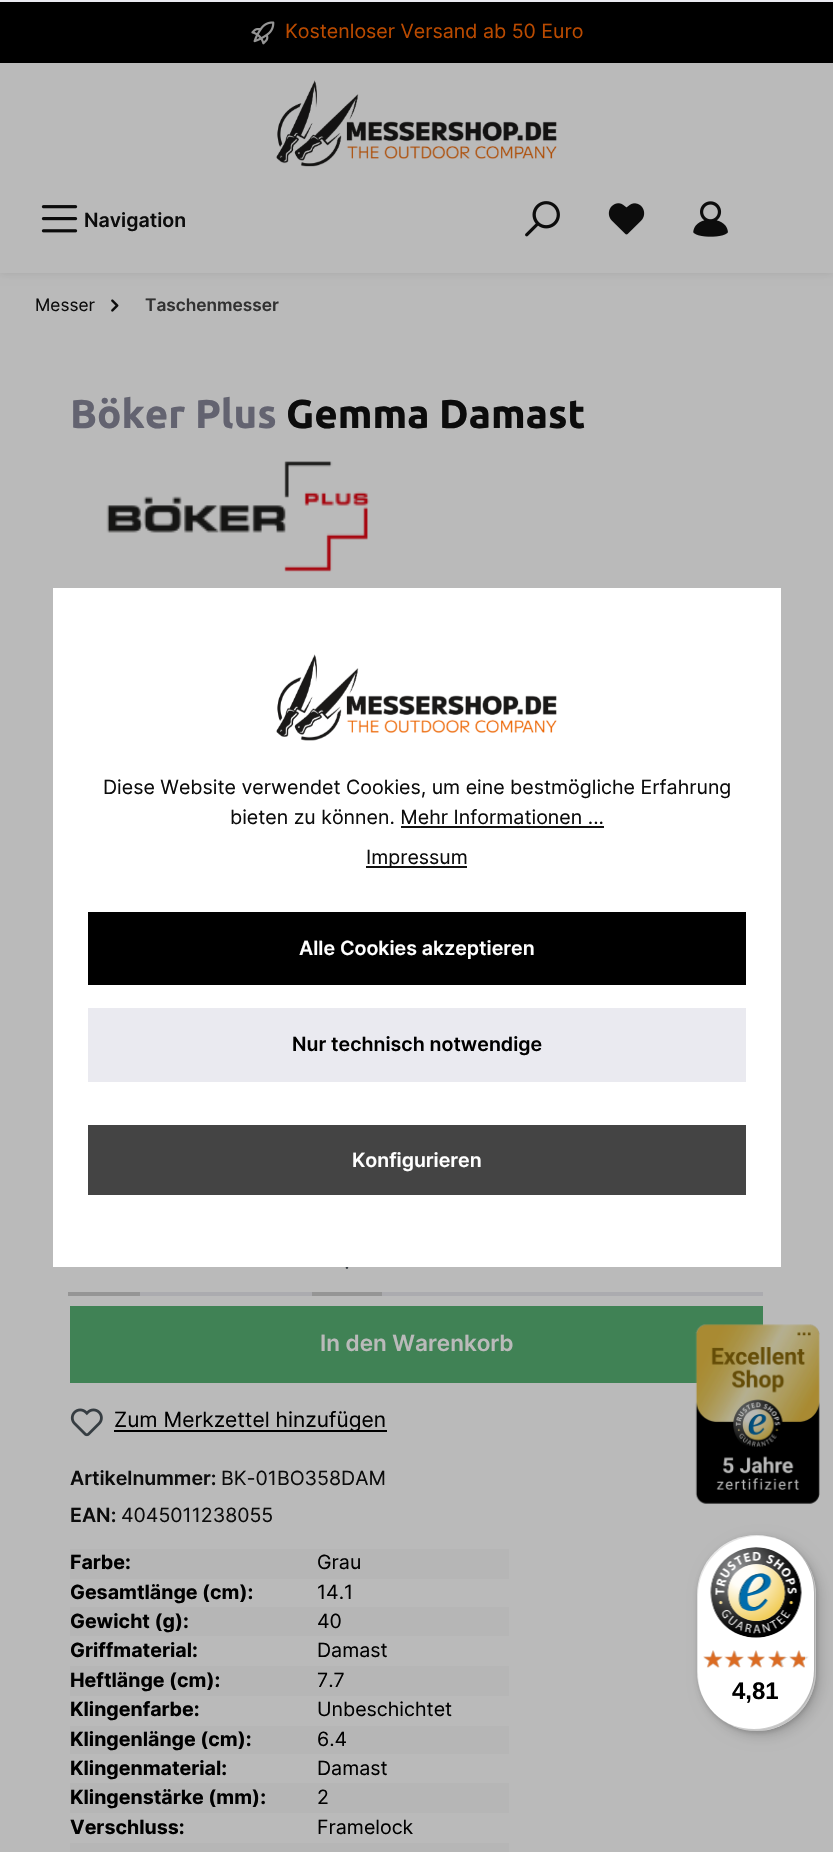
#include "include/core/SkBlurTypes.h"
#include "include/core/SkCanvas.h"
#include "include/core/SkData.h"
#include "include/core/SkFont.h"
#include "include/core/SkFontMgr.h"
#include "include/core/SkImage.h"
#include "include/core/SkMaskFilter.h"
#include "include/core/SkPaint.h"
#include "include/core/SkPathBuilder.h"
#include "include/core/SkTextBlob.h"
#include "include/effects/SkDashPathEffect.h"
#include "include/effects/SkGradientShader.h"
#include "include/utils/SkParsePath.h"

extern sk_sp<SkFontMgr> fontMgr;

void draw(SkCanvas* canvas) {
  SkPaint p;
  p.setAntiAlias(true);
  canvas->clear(SkColorSetRGB(186, 186, 186));
  p.setColor(SK_ColorBLACK);
  canvas->drawRect(SkRect::MakeLTRB(0, 2, 833, 63), p);
  canvas->drawImageRect(SkImages::DeferredFromEncodedData(SkData::MakeFromFileName("images/1.png")), SkRect::MakeLTRB(251, 21, 275, 45), SkSamplingOptions());
  p.setColor(SkColorSetARGB(26, 0, 0, 0));
  p.setMaskFilter(SkMaskFilter::MakeBlur(kNormal_SkBlurStyle, 4.5f));
  canvas->drawRect(SkRect::MakeLTRB(0, 63, 833, 273), p);
  p.setMaskFilter(nullptr);
  p.setColor(SkColorSetRGB(186, 186, 186));
  canvas->drawRect(SkRect::MakeLTRB(0, 63, 833, 273), p);
  canvas->drawImageRect(SkImages::DeferredFromEncodedData(SkData::MakeFromFileName("images/2.png")), SkRect::MakeLTRB(276, 80, 557, 167), SkSamplingOptions());
  canvas->drawImageRect(SkImages::DeferredFromEncodedData(SkData::MakeFromFileName("images/3.png")), SkRect::MakeLTRB(41, 205, 78, 233), SkSamplingOptions());
  canvas->drawImageRect(SkImages::DeferredFromEncodedData(SkData::MakeFromFileName("images/4.png")), SkRect::MakeLTRB(525, 201, 560, 237), SkSamplingOptions());
  canvas->drawImageRect(SkImages::DeferredFromEncodedData(SkData::MakeFromFileName("images/5.png")), SkRect::MakeLTRB(608, 203, 645, 235), SkSamplingOptions());
  canvas->drawImageRect(SkImages::DeferredFromEncodedData(SkData::MakeFromFileName("images/6.png")), SkRect::MakeLTRB(693, 201, 728, 237), SkSamplingOptions());
  canvas->drawImageRect(SkImages::DeferredFromEncodedData(SkData::MakeFromFileName("images/7.png")), SkRect::MakeLTRB(111, 299, 119, 312), SkSamplingOptions());
  canvas->drawImageRect(SkImages::DeferredFromEncodedData(SkData::MakeFromFileName("images/8.png")), SkRect::MakeLTRB(106, 461, 370, 572), SkSamplingOptions());
  p.setColor(SkColorSetRGB(171, 171, 175));
  canvas->drawRect(SkRect::MakeLTRB(138, 1292, 313, 1296), p);
  p.setColor(SkColorSetRGB(149, 149, 149));
  canvas->drawRect(SkRect::MakeLTRB(68, 1292, 140, 1296), p);
  p.setColor(SkColorSetRGB(171, 171, 175));
  canvas->drawRect(SkRect::MakeLTRB(380, 1292, 763, 1296), p);
  p.setColor(SkColorSetRGB(149, 149, 149));
  canvas->drawRect(SkRect::MakeLTRB(312, 1292, 382, 1296), p);
  canvas->drawImageRect(SkImages::DeferredFromEncodedData(SkData::MakeFromFileName("images/9.png")), SkRect::MakeLTRB(345, 1267, 349, 1269), SkSamplingOptions());
  p.setColor(SkColorSetRGB(64, 130, 85));
  canvas->drawRect(SkRect::MakeLTRB(70, 1306, 763, 1383), p);
  canvas->drawImageRect(SkImages::DeferredFromEncodedData(SkData::MakeFromFileName("images/10.png")), SkRect::MakeLTRB(70, 1408, 103, 1437), SkSamplingOptions());
  p.setColor(SK_ColorBLACK);
  canvas->drawRect(SkRect::MakeLTRB(114, 1430, 387, 1432), p);
  p.setColor(SkColorSetRGB(182, 182, 182));
  canvas->drawRect(SkRect::MakeLTRB(70, 1549, 509, 1579), p);
  canvas->drawRect(SkRect::MakeLTRB(70, 1607, 509, 1636), p);
  canvas->drawRect(SkRect::MakeLTRB(70, 1666, 509, 1696), p);
  canvas->drawRect(SkRect::MakeLTRB(70, 1726, 509, 1754), p);
  canvas->drawRect(SkRect::MakeLTRB(70, 1783, 509, 1813), p);
  canvas->drawRect(SkRect::MakeLTRB(70, 1843, 509, 1852), p);
  p.setColor(SkColorSetRGB(234, 234, 240));
  canvas->drawRect(SkRect::MakeLTRB(0, 0, 833, 2), p);
  p.setColor(SK_ColorWHITE);
  canvas->drawRect(SkRect::MakeLTRB(53, 588, 781, 1267), p);
  canvas->drawImageRect(SkImages::DeferredFromEncodedData(SkData::MakeFromFileName("images/11.png")), SkRect::MakeLTRB(276, 654, 557, 741), SkSamplingOptions());
  p.setColor(SkColorSetRGB(17, 17, 17));
  canvas->drawRect(SkRect::MakeLTRB(401, 826, 604, 828), p);
  canvas->drawRect(SkRect::MakeLTRB(366, 866, 467, 868), p);
  p.setColor(SK_ColorBLACK);
  canvas->drawRect(SkRect::MakeLTRB(88, 912, 746, 985), p);
  p.setColor(SkColorSetRGB(234, 234, 240));
  canvas->drawRect(SkRect::MakeLTRB(88, 1008, 746, 1082), p);
  p.setColor(SkColorSetRGB(68, 68, 68));
  canvas->drawRect(SkRect::MakeLTRB(88, 1125, 746, 1195), p);
  canvas->drawImageRect(SkImages::DeferredFromEncodedData(SkData::MakeFromFileName("images/12.png")), SkRect::MakeLTRB(695, 1324, 820, 1504), SkSamplingOptions());
  p.setColor(SkColorSetARGB(38, 0, 0, 0));
  p.setMaskFilter(SkMaskFilter::MakeBlur(kNormal_SkBlurStyle, 7));
  canvas->drawRoundRect(SkRect::MakeLTRB(702, 1540, 821, 1736), 59.5f, 59.5f, p);
  p.setMaskFilter(nullptr);
  p.setMaskFilter(SkMaskFilter::MakeBlur(kNormal_SkBlurStyle, 2));
  canvas->drawRoundRect(SkRect::MakeLTRB(698, 1537, 817, 1733), 59.5f, 59.5f, p);
  p.setMaskFilter(nullptr);
  p.setColor(SK_ColorWHITE);
  canvas->drawRoundRect(SkRect::MakeLTRB(697, 1535, 816, 1731), 59.5f, 59.5f, p);
  p.setColor(SkColorSetARGB(26, 0, 0, 0));
  canvas->drawPath(SkPathBuilder().moveTo(758, 1536).cubicTo(773, 1536, 786, 1541, 796, 1550).cubicTo(785, 1541, 772, 1535, 756, 1535).cubicTo(724, 1535, 697, 1562, 697, 1594).lineTo(697, 1672).cubicTo(697, 1687, 703, 1700, 712, 1711).cubicTo(703, 1701, 698, 1688, 698, 1673).lineTo(698, 1596).cubicTo(698, 1563, 725, 1536, 758, 1536).close().detach(), p);
  p.setColor(SkColorSetARGB(51, 0, 0, 0));
  canvas->drawPath(SkPathBuilder().moveTo(716, 1715).cubicTo(727, 1725, 741, 1731, 756, 1731).cubicTo(789, 1731, 816, 1704, 816, 1672).lineTo(816, 1594).cubicTo(816, 1576, 808, 1560, 794, 1549).cubicTo(806, 1559, 814, 1575, 814, 1592).lineTo(814, 1670).cubicTo(814, 1702, 787, 1729, 754, 1729).cubicTo(739, 1729, 726, 1724, 716, 1715).close().detach(), p);
  p.setColor(SkColorSetARGB(51, 50, 50, 50));
  canvas->drawPath(SkPathBuilder().moveTo(723, 1721).cubicTo(733, 1727, 744, 1731, 756, 1731).cubicTo(789, 1731, 816, 1704, 816, 1672).lineTo(816, 1594).cubicTo(816, 1575, 806, 1557, 792, 1546).cubicTo(805, 1557, 814, 1574, 814, 1593).lineTo(814, 1670).cubicTo(814, 1703, 788, 1730, 755, 1730).cubicTo(743, 1730, 732, 1727, 723, 1721).close().detach(), p);
  p.setColor(SkColorSetARGB(77, 255, 255, 255));
  canvas->drawPath(SkPathBuilder().moveTo(717, 1716).cubicTo(728, 1725, 741, 1731, 756, 1731).cubicTo(789, 1731, 816, 1704, 816, 1672).lineTo(816, 1594).cubicTo(816, 1575, 806, 1557, 791, 1546).cubicTo(806, 1557, 815, 1574, 815, 1593).lineTo(815, 1670).cubicTo(815, 1703, 788, 1730, 755, 1730).cubicTo(740, 1730, 727, 1725, 717, 1716).close().detach(), p);
  canvas->drawImageRect(SkImages::DeferredFromEncodedData(SkData::MakeFromFileName("images/13.png")), SkRect::MakeLTRB(710, 1547, 802, 1638), SkSamplingOptions());
  canvas->drawImageRect(SkImages::DeferredFromEncodedData(SkData::MakeFromFileName("images/14.png")), SkRect::MakeLTRB(703, 1650, 723, 1668), SkSamplingOptions());
  canvas->drawImageRect(SkImages::DeferredFromEncodedData(SkData::MakeFromFileName("images/15.png")), SkRect::MakeLTRB(726, 1651, 744, 1667), SkSamplingOptions());
  canvas->drawImageRect(SkImages::DeferredFromEncodedData(SkData::MakeFromFileName("images/16.png")), SkRect::MakeLTRB(747, 1650, 765, 1668), SkSamplingOptions());
  canvas->drawImageRect(SkImages::DeferredFromEncodedData(SkData::MakeFromFileName("images/17.png")), SkRect::MakeLTRB(768, 1651, 788, 1667), SkSamplingOptions());
  canvas->drawImageRect(SkImages::DeferredFromEncodedData(SkData::MakeFromFileName("images/18.png")), SkRect::MakeLTRB(789, 1650, 809, 1668), SkSamplingOptions());
  canvas->drawImageRect(SkImages::DeferredFromEncodedData(SkData::MakeFromFileName("images/19.png")), SkRect::MakeLTRB(703, 1650, 723, 1668), SkSamplingOptions());
  canvas->drawImageRect(SkImages::DeferredFromEncodedData(SkData::MakeFromFileName("images/20.png")), SkRect::MakeLTRB(724, 1650, 744, 1668), SkSamplingOptions());
  canvas->drawImageRect(SkImages::DeferredFromEncodedData(SkData::MakeFromFileName("images/21.png")), SkRect::MakeLTRB(747, 1650, 765, 1668), SkSamplingOptions());
  canvas->drawImageRect(SkImages::DeferredFromEncodedData(SkData::MakeFromFileName("images/22.png")), SkRect::MakeLTRB(768, 1650, 786, 1668), SkSamplingOptions());
  canvas->drawImageRect(SkImages::DeferredFromEncodedData(SkData::MakeFromFileName("images/23.png")), SkRect::MakeLTRB(789, 1650, 805, 1668), SkSamplingOptions());
  SkFont font1(fontMgr->matchFamilyStyle("Inter", SkFontStyle::Normal()), 19.6f);
  font1.setSubpixel(true);
  p.setColor(SkColorSetRGB(186, 74, 0));
  canvas->drawString("Kostenloser Versand ab 50 Euro", 285, 38, font1, p);
  SkFont font2(fontMgr->matchFamilyStyle("Inter", SkFontStyle(600, SkFontStyle::kNormal_Width, SkFontStyle::kUpright_Slant)), 19.6f);
  font2.setSubpixel(true);
  p.setColor(SkColorSetRGB(12, 12, 12));
  canvas->drawString("Navigation", 84, 227, font2, p);
  SkFont font3(fontMgr->matchFamilyStyle("Inter", SkFontStyle::Normal()), 17.25f);
  font3.setSubpixel(true);
  canvas->drawString("Messer", 35, 311, font3, p);
  SkFont font4(fontMgr->matchFamilyStyle("Inter", SkFontStyle(600, SkFontStyle::kNormal_Width, SkFontStyle::kUpright_Slant)), 17.25f);
  font4.setSubpixel(true);
  p.setColor(SkColorSetRGB(50, 50, 50));
  canvas->drawString("Taschenmesser", 145, 311, font4, p);
  SkFont font5(fontMgr->matchFamilyStyle("Ubuntu", SkFontStyle::Bold()), 40.25f);
  font5.setSubpixel(true);
  p.setColor(SkColorSetRGB(99, 99, 112));
  canvas->drawString("Böker Plus", 70, 428, font5, p);
  p.setColor(SkColorSetRGB(12, 12, 12));
  canvas->drawString("Gemma Damast", 286, 428, font5, p);
  SkFont font6(fontMgr->matchFamilyStyle("Inter", SkFontStyle(600, SkFontStyle::kNormal_Width, SkFontStyle::kUpright_Slant)), 22.5f);
  font6.setSubpixel(true);
  p.setColor(SkColorSetRGB(186, 186, 186));
  canvas->drawString("In den Warenkorb", 320, 1351, font6, p);
  SkFont font7(fontMgr->matchFamilyStyle("Inter", SkFontStyle::Normal()), 21);
  font7.setSubpixel(true);
  p.setColor(SK_ColorBLACK);
  canvas->drawString("Zum Merkzettel hinzufügen", 114, 1427, font7, p);
  p.setColor(SkColorSetRGB(12, 12, 12));
  canvas->drawString("Artikelnummer:", 70, 1485, font2, p);
  canvas->drawString("BK-01BO358DAM", 221, 1485, font1, p);
  canvas->drawString("EAN:", 70, 1522, font2, p);
  canvas->drawString("4045011238055", 121, 1522, font1, p);
  SkFont font8(fontMgr->matchFamilyStyle("Inter", SkFontStyle::Bold()), 19.6f);
  font8.setSubpixel(true);
  p.setColor(SK_ColorBLACK);
  canvas->drawString("Farbe:", 70, 1569, font8, p);
  canvas->drawString("Grau", 317, 1569, font1, p);
  canvas->drawString("Gesamtlänge (cm):", 70, 1599, font8, p);
  canvas->drawString("14.1", 317, 1599, font1, p);
  canvas->drawString("Gewicht (g):", 70, 1628, font8, p);
  canvas->drawString("40", 317, 1628, font1, p);
  canvas->drawString("Griffmaterial:", 70, 1657, font8, p);
  canvas->drawString("Damast", 317, 1657, font1, p);
  canvas->drawString("Heftlänge (cm):", 70, 1687, font8, p);
  canvas->drawString("7.7", 317, 1687, font1, p);
  canvas->drawString("Klingenfarbe:", 70, 1716, font8, p);
  canvas->drawString("Unbeschichtet", 317, 1716, font1, p);
  canvas->drawString("Klingenlänge (cm):", 70, 1746, font8, p);
  canvas->drawString("6.4", 317, 1746, font1, p);
  canvas->drawString("Klingenmaterial:", 70, 1775, font8, p);
  canvas->drawString("Damast", 317, 1775, font1, p);
  canvas->drawString("Klingenstärke (mm):", 70, 1804, font8, p);
  canvas->drawString("2", 317, 1804, font1, p);
  canvas->drawString("Verschluss:", 70, 1834, font8, p);
  canvas->drawString("Framelock", 317, 1834, font1, p);
  p.setColor(SkColorSetRGB(12, 12, 12));
  canvas->drawString("Diese Website verwendet Cookies, um eine bestmögliche Erfahrung", 103, 794, font1, p);
  canvas->drawString("bieten zu können. Mehr Informationen ...", 230, 824, font1, p);
  canvas->drawString("Impressum", 366, 864, font1, p);
  p.setColor(SK_ColorWHITE);
  canvas->drawString("Alle Cookies akzeptieren", 299, 955, font2, p);
  p.setColor(SK_ColorBLACK);
  canvas->drawString("Nur technisch notwendige", 292, 1051, font2, p);
  p.setColor(SK_ColorWHITE);
  canvas->drawString("Konfigurieren", 352, 1167, font2, p);
  SkFont font9(fontMgr->matchFamilyStyle("Liberation Sans", SkFontStyle::Bold()), 24);
  font9.setSubpixel(true);
  p.setColor(SK_ColorBLACK);
  canvas->drawString("4,81", 732, 1699, font9, p);
}
